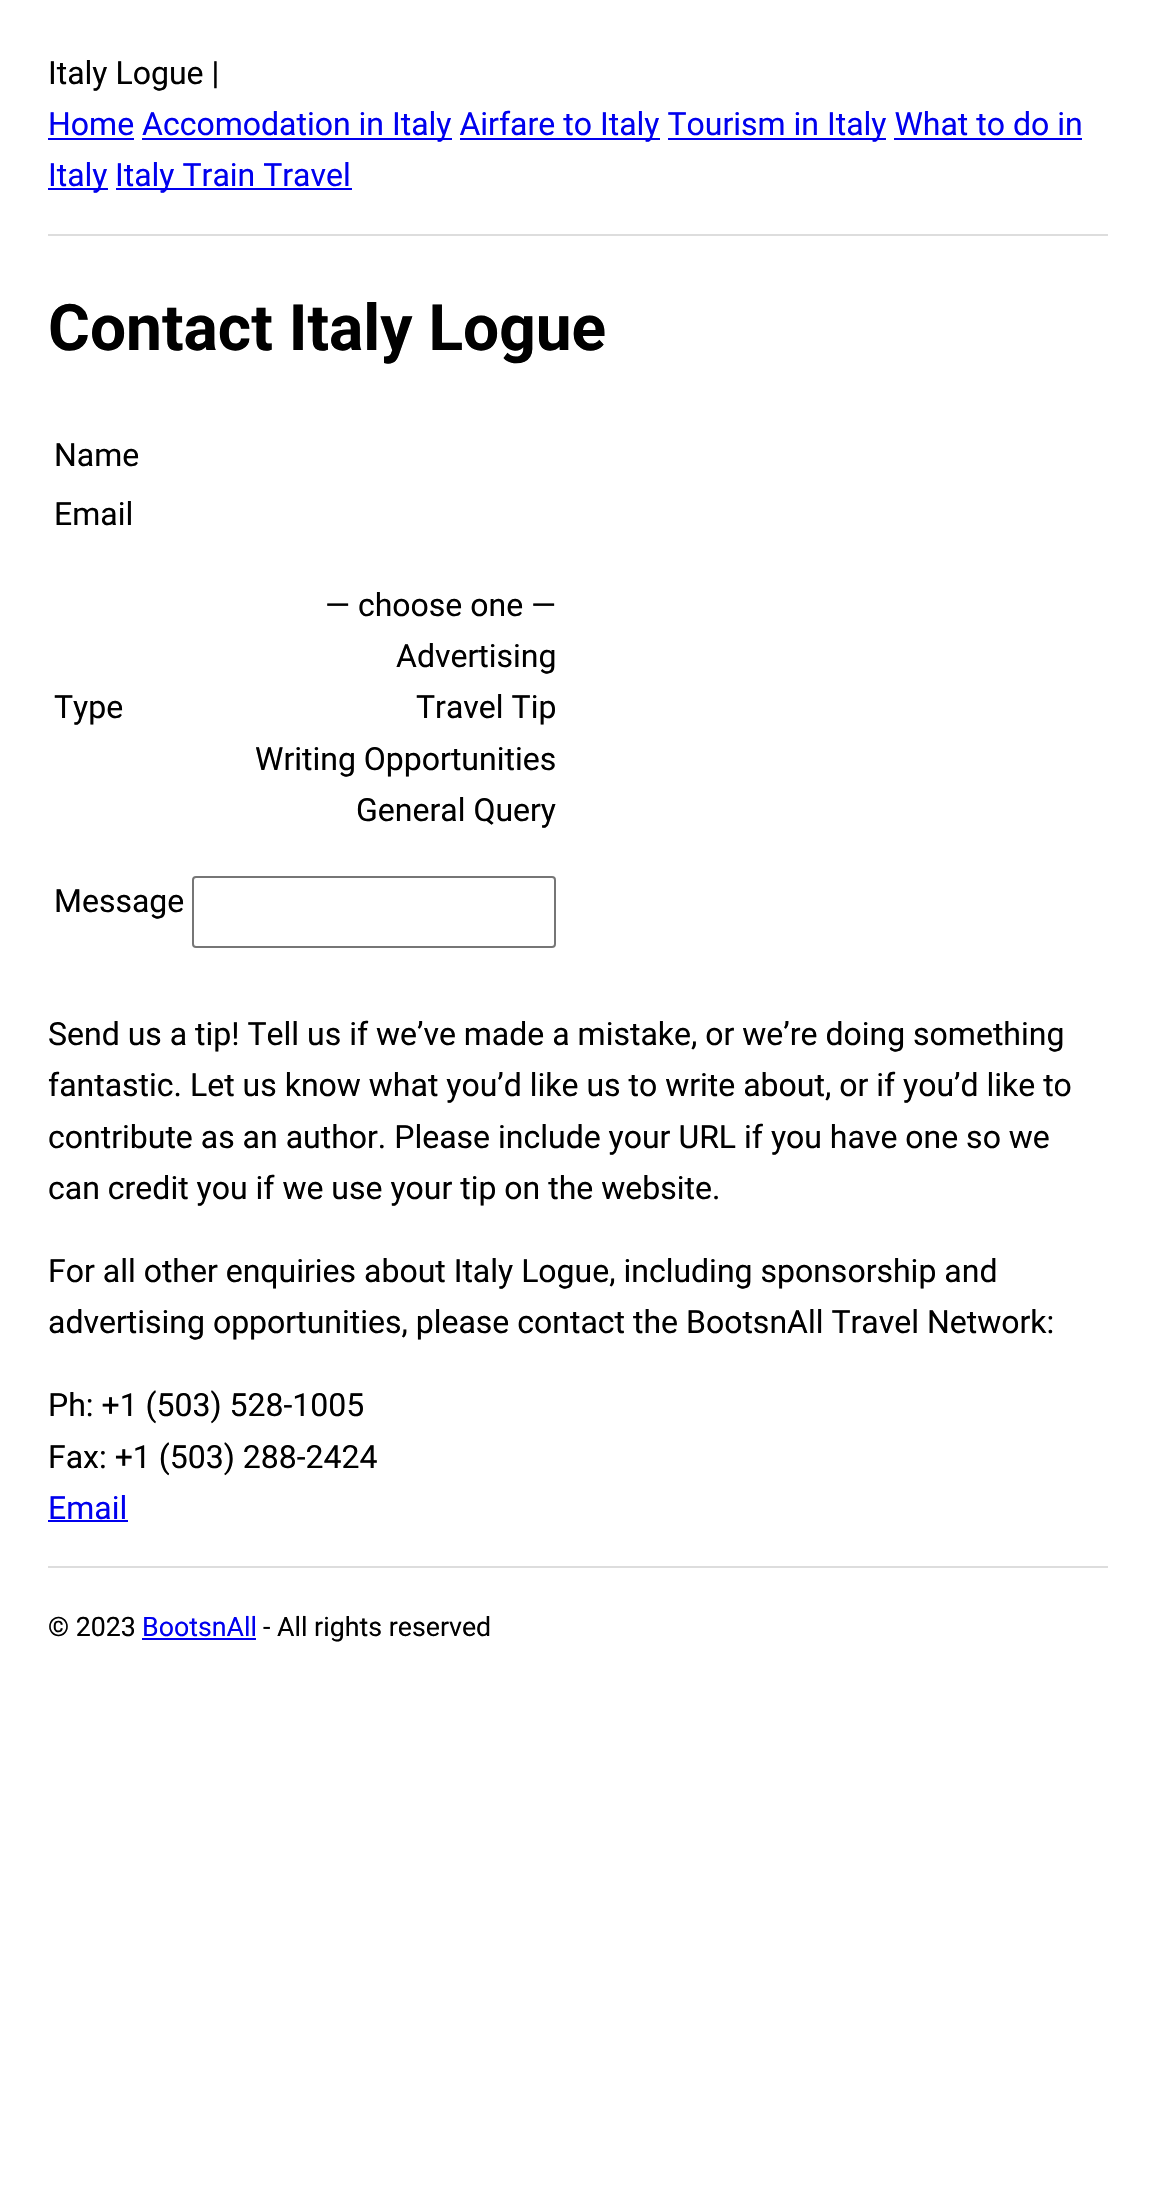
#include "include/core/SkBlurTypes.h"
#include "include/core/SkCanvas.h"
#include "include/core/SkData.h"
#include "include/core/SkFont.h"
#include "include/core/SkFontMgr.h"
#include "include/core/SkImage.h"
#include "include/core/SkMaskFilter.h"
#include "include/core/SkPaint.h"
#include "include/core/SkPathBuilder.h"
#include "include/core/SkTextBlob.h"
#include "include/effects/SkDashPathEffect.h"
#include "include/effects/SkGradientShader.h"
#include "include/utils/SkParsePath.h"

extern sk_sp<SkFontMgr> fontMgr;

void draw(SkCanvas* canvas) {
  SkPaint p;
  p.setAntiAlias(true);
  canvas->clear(SK_ColorWHITE);
  p.setColor(SkColorSetRGB(0, 0, 238));
  canvas->drawRect(SkRect::MakeLTRB(48, 138, 134, 140), p);
  canvas->drawRect(SkRect::MakeLTRB(142, 138, 452, 140), p);
  canvas->drawRect(SkRect::MakeLTRB(460, 138, 660, 140), p);
  canvas->drawRect(SkRect::MakeLTRB(668, 138, 886, 140), p);
  canvas->drawRect(SkRect::MakeLTRB(894, 138, 1082, 140), p);
  canvas->drawRect(SkRect::MakeLTRB(48, 188, 108, 190), p);
  canvas->drawRect(SkRect::MakeLTRB(116, 188, 174, 190), p);
  canvas->drawRect(SkRect::MakeLTRB(174, 188, 352, 190), p);
  p.setColor(SkColorSetRGB(221, 221, 221));
  canvas->drawRect(SkRect::MakeLTRB(48, 234, 1108, 236), p);
  p.setStyle(SkPaint::kStroke_Style);
  p.setStrokeWidth(2);
  p.setColor(SkColorSetRGB(118, 118, 118));
  canvas->drawRoundRect(SkRect::MakeLTRB(193, 877, 555, 947), 3, 3, p);
  p.setStyle(SkPaint::kFill_Style);
  p.setColor(SkColorSetRGB(0, 0, 238));
  canvas->drawRect(SkRect::MakeLTRB(48, 1520, 128, 1522), p);
  p.setColor(SkColorSetRGB(221, 221, 221));
  canvas->drawRect(SkRect::MakeLTRB(48, 1566, 1108, 1568), p);
  p.setColor(SkColorSetRGB(0, 0, 238));
  canvas->drawRect(SkRect::MakeLTRB(142, 1638, 256, 1640), p);
  SkFont font1(fontMgr->matchFamilyStyle("Roboto", SkFontStyle::Normal()), 32);
  font1.setSubpixel(true);
  p.setColor(SK_ColorBLACK);
  canvas->drawString("Italy Logue |", 48, 84, font1, p);
  p.setColor(SkColorSetRGB(0, 0, 238));
  canvas->drawString("Home Accomodation in", 48, 135, font1, p);
  canvas->drawString("Italy Airfare to", 392, 135, font1, p);
  canvas->drawString("Italy Tourism in", 600, 135, font1, p);
  canvas->drawString("Italy What to do in", 827, 135, font1, p);
  canvas->drawString("Italy", 48, 186, font1, p);
  canvas->drawString("Italy Train Travel", 115, 186, font1, p);
  SkFont font2(fontMgr->matchFamilyStyle("Roboto", SkFontStyle::Bold()), 64);
  font2.setSubpixel(true);
  p.setColor(SK_ColorBLACK);
  canvas->drawString("Contact Italy Logue", 48, 350, font2, p);
  canvas->drawString("Name", 54, 466, font1, p);
  canvas->drawString("Email", 54, 525, font1, p);
  canvas->drawString("Type", 54, 718, font1, p);
  canvas->drawString("— choose one —", 325, 616, font1, p);
  canvas->drawString("Advertising", 396, 667, font1, p);
  canvas->drawString("Travel Tip", 416, 718, font1, p);
  canvas->drawString("Writing Opportunities", 255, 770, font1, p);
  canvas->drawString("General Query", 356, 821, font1, p);
  canvas->drawString("Message", 54, 912, font1, p);
  canvas->drawString("Send us a tip! Tell us if we’ve made a mistake, or we’re doing something", 48, 1045, font1, p);
  canvas->drawString("fantastic. Let us know what you’d like us to write about, or if you’d like to", 48, 1096, font1, p);
  canvas->drawString("contribute as an author. Please include your URL if you have one so we", 48, 1148, font1, p);
  canvas->drawString("can credit you if we use your tip on the website.", 48, 1199, font1, p);
  canvas->drawString("For all other enquiries about Italy Logue, including sponsorship and", 48, 1282, font1, p);
  canvas->drawString("advertising opportunities, please contact the BootsnAll Travel Network:", 48, 1333, font1, p);
  canvas->drawString("Ph: +1 (503) 528-1005", 48, 1416, font1, p);
  canvas->drawString("Fax: +1 (503) 288-2424", 48, 1468, font1, p);
  p.setColor(SkColorSetRGB(0, 0, 238));
  canvas->drawString("Email", 48, 1519, font1, p);
  SkFont font3(fontMgr->matchFamilyStyle("Roboto", SkFontStyle::Normal()), 26.75f);
  font3.setSubpixel(true);
  p.setColor(SK_ColorBLACK);
  canvas->drawString("© 2023", 48, 1636, font3, p);
  p.setColor(SkColorSetRGB(0, 0, 238));
  canvas->drawString("BootsnAll", 142, 1636, font3, p);
  p.setColor(SK_ColorBLACK);
  canvas->drawString("- All rights reserved", 263, 1636, font3, p);
}
